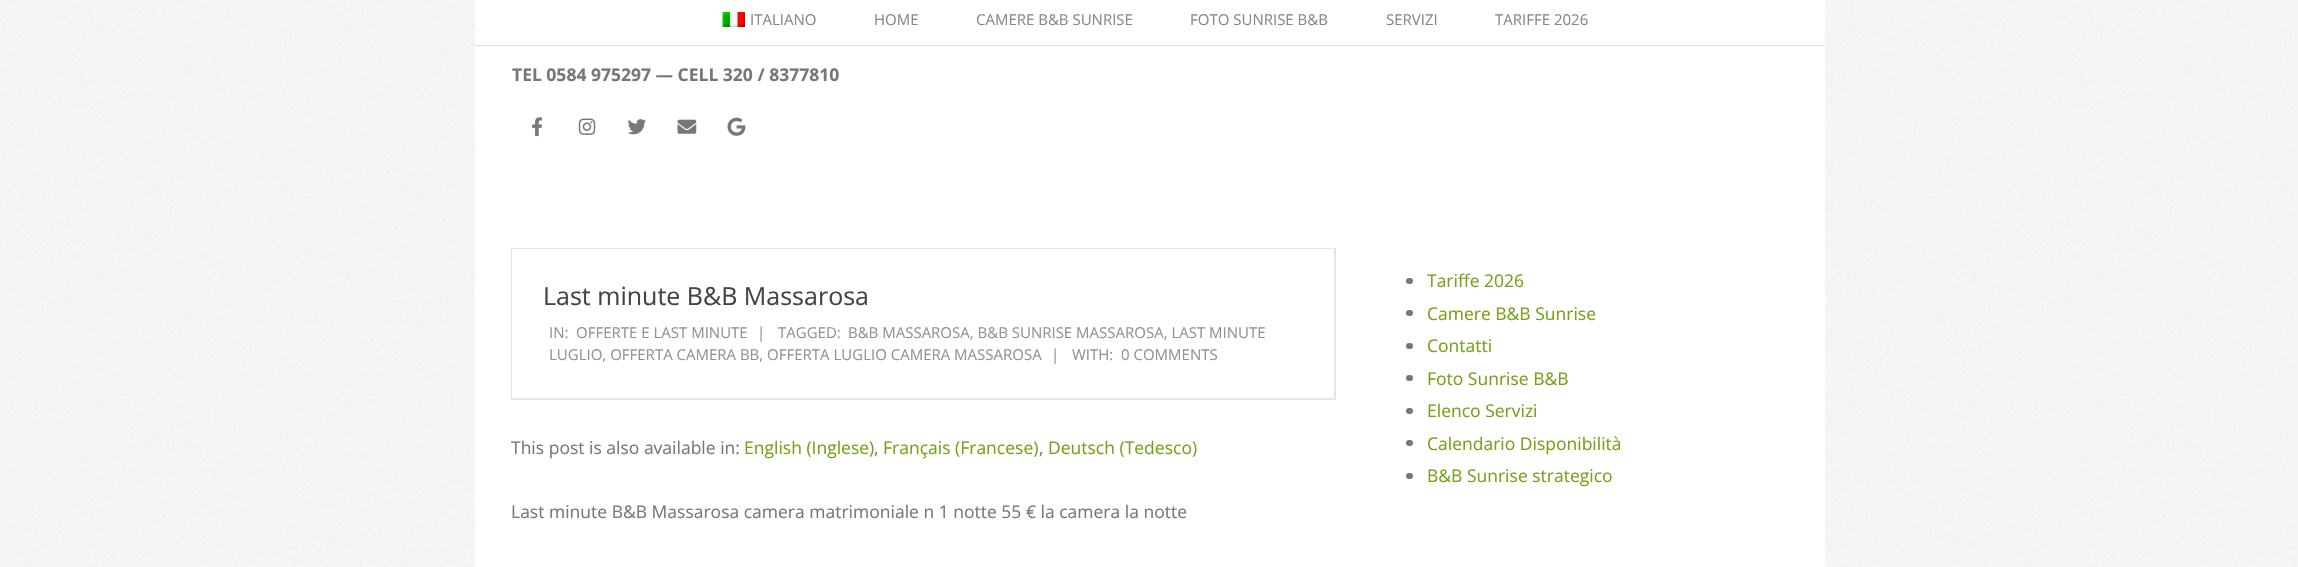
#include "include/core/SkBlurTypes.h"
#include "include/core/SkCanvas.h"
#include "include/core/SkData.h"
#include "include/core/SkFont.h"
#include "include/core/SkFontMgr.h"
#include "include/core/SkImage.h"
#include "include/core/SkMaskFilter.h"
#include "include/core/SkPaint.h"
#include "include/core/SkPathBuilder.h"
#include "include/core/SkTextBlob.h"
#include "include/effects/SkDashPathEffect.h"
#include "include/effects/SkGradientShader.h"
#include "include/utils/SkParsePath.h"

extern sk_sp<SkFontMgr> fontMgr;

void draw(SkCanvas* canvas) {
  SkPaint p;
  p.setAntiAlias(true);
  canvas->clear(SkColorSetRGB(245, 245, 245));
  canvas->drawImageRect(SkImages::DeferredFromEncodedData(SkData::MakeFromFileName("images/1.png")), SkRect::MakeLTRB(0, 0, 2297, 567), SkSamplingOptions());
  p.setColor(SK_ColorWHITE);
  canvas->drawRect(SkRect::MakeLTRB(475, 0, 1825, 567), p);
  p.setColor(SkColorSetRGB(221, 221, 221));
  canvas->drawRect(SkRect::MakeLTRB(475, 45, 1825, 46), p);
  canvas->drawImageRect(SkImages::DeferredFromEncodedData(SkData::MakeFromFileName("images/2.png")), SkRect::MakeLTRB(722, 12, 745, 27), SkSamplingOptions());
  canvas->drawImageRect(SkImages::DeferredFromEncodedData(SkData::MakeFromFileName("images/3.png")), SkRect::MakeLTRB(532, 117, 543, 137), SkSamplingOptions());
  canvas->drawImageRect(SkImages::DeferredFromEncodedData(SkData::MakeFromFileName("images/4.png")), SkRect::MakeLTRB(578, 118, 596, 135), SkSamplingOptions());
  canvas->drawImageRect(SkImages::DeferredFromEncodedData(SkData::MakeFromFileName("images/5.png")), SkRect::MakeLTRB(627, 119, 646, 135), SkSamplingOptions());
  canvas->drawImageRect(SkImages::DeferredFromEncodedData(SkData::MakeFromFileName("images/6.png")), SkRect::MakeLTRB(677, 119, 697, 134), SkSamplingOptions());
  canvas->drawImageRect(SkImages::DeferredFromEncodedData(SkData::MakeFromFileName("images/7.png")), SkRect::MakeLTRB(727, 117, 746, 136), SkSamplingOptions());
  p.setColor(SkColorSetRGB(230, 230, 230));
  canvas->drawPath(SkPathBuilder().moveTo(511, 248).lineTo(1336, 248).lineTo(1334, 249).lineTo(512, 249).close().detach(), p);
  p.setColor(SkColorSetARGB(26, 0, 0, 0));
  canvas->drawPath(SkPathBuilder().moveTo(1336, 248).lineTo(1336, 400).lineTo(1334, 398).lineTo(1334, 249).close().detach(), p);
  canvas->drawPath(SkPathBuilder().moveTo(1336, 400).lineTo(511, 400).lineTo(512, 398).lineTo(1334, 398).close().detach(), p);
  canvas->drawPath(SkPathBuilder().moveTo(511, 400).lineTo(511, 248).lineTo(512, 249).lineTo(512, 398).close().detach(), p);
  p.setColor(SkColorSetRGB(119, 119, 119));
  canvas->drawRoundRect(SkRect::MakeLTRB(1406, 278, 1413, 284), 3, 3, p);
  canvas->drawRoundRect(SkRect::MakeLTRB(1406, 310, 1413, 316), 3, 3, p);
  canvas->drawRoundRect(SkRect::MakeLTRB(1406, 343, 1413, 349), 3, 3, p);
  canvas->drawRoundRect(SkRect::MakeLTRB(1406, 375, 1413, 381), 3, 3, p);
  canvas->drawRoundRect(SkRect::MakeLTRB(1406, 408, 1413, 414), 3, 3, p);
  canvas->drawRoundRect(SkRect::MakeLTRB(1406, 440, 1413, 446), 3, 3, p);
  canvas->drawRoundRect(SkRect::MakeLTRB(1406, 473, 1413, 479), 3, 3, p);
  SkFont font1(fontMgr->matchFamilyStyle("Open Sans", SkFontStyle::Normal()), 15);
  font1.setSubpixel(true);
  p.setColor(SkColorSetRGB(136, 136, 136));
  canvas->drawString("ITALIANO", 750, 25, font1, p);
  canvas->drawString("HOME", 874, 25, font1, p);
  canvas->drawString("CAMERE B&B SUNRISE", 976, 25, font1, p);
  canvas->drawString("FOTO SUNRISE B&B", 1190, 25, font1, p);
  canvas->drawString("SERVIZI", 1386, 25, font1, p);
  canvas->drawString("TARIFFE 2026", 1495, 25, font1, p);
  SkFont font2(fontMgr->matchFamilyStyle("Open Sans", SkFontStyle::Bold()), 17.5f);
  font2.setSubpixel(true);
  p.setColor(SkColorSetRGB(119, 119, 119));
  canvas->drawString("TEL 0584 975297 — CELL 320 / 8377810", 512, 81, font2, p);
  SkFont font3(fontMgr->matchFamilyStyle("Open Sans", SkFontStyle::Normal()), 25);
  font3.setSubpixel(true);
  p.setColor(SkColorSetRGB(68, 68, 68));
  canvas->drawString("Last minute B&B Massarosa", 543, 305, font3, p);
  p.setColor(SkColorSetRGB(146, 146, 146));
  canvas->drawString("IN:", 549, 338, font1, p);
  canvas->drawString("OFFERTE E LAST MINUTE", 576, 338, font1, p);
  canvas->drawString("|", 757, 338, font1, p);
  canvas->drawString("TAGGED:", 778, 338, font1, p);
  canvas->drawString("B&B MASSAROSA, B&B SUNRISE MASSAROSA, LAST MINUTE", 848, 338, font1, p);
  canvas->drawString("LUGLIO, OFFERTA CAMERA BB, OFFERTA LUGLIO CAMERA MASSAROSA", 549, 360, font1, p);
  canvas->drawString("|", 1051, 360, font1, p);
  canvas->drawString("WITH:", 1072, 360, font1, p);
  canvas->drawString("0 COMMENTS", 1121, 360, font1, p);
  SkFont font4(fontMgr->matchFamilyStyle("Open Sans", SkFontStyle::Normal()), 17.5f);
  font4.setSubpixel(true);
  p.setColor(SkColorSetRGB(119, 119, 119));
  canvas->drawString("This post is also available in:", 511, 454, font4, p);
  p.setColor(SkColorSetRGB(116, 161, 22));
  canvas->drawString("English (Inglese)", 744, 454, font4, p);
  p.setColor(SkColorSetRGB(119, 119, 119));
  canvas->drawString(",", 874, 454, font4, p);
  p.setColor(SkColorSetRGB(116, 161, 22));
  canvas->drawString("Français (Francese)", 883, 454, font4, p);
  p.setColor(SkColorSetRGB(119, 119, 119));
  canvas->drawString(",", 1039, 454, font4, p);
  p.setColor(SkColorSetRGB(116, 161, 22));
  canvas->drawString("Deutsch (Tedesco)", 1048, 454, font4, p);
  p.setColor(SkColorSetRGB(119, 119, 119));
  canvas->drawString("Last minute B&B Massarosa camera matrimoniale n 1 notte 55 € la camera la notte", 511, 518, font4, p);
  p.setColor(SkColorSetRGB(116, 161, 22));
  canvas->drawString("Tariffe 2026", 1427, 287, font4, p);
  canvas->drawString("Camere B&B Sunrise", 1427, 320, font4, p);
  canvas->drawString("Contatti", 1427, 352, font4, p);
  canvas->drawString("Foto Sunrise B&B", 1427, 385, font4, p);
  canvas->drawString("Elenco Servizi", 1427, 417, font4, p);
  canvas->drawString("Calendario Disponibilità", 1427, 450, font4, p);
  canvas->drawString("B&B Sunrise strategico", 1427, 482, font4, p);
}
